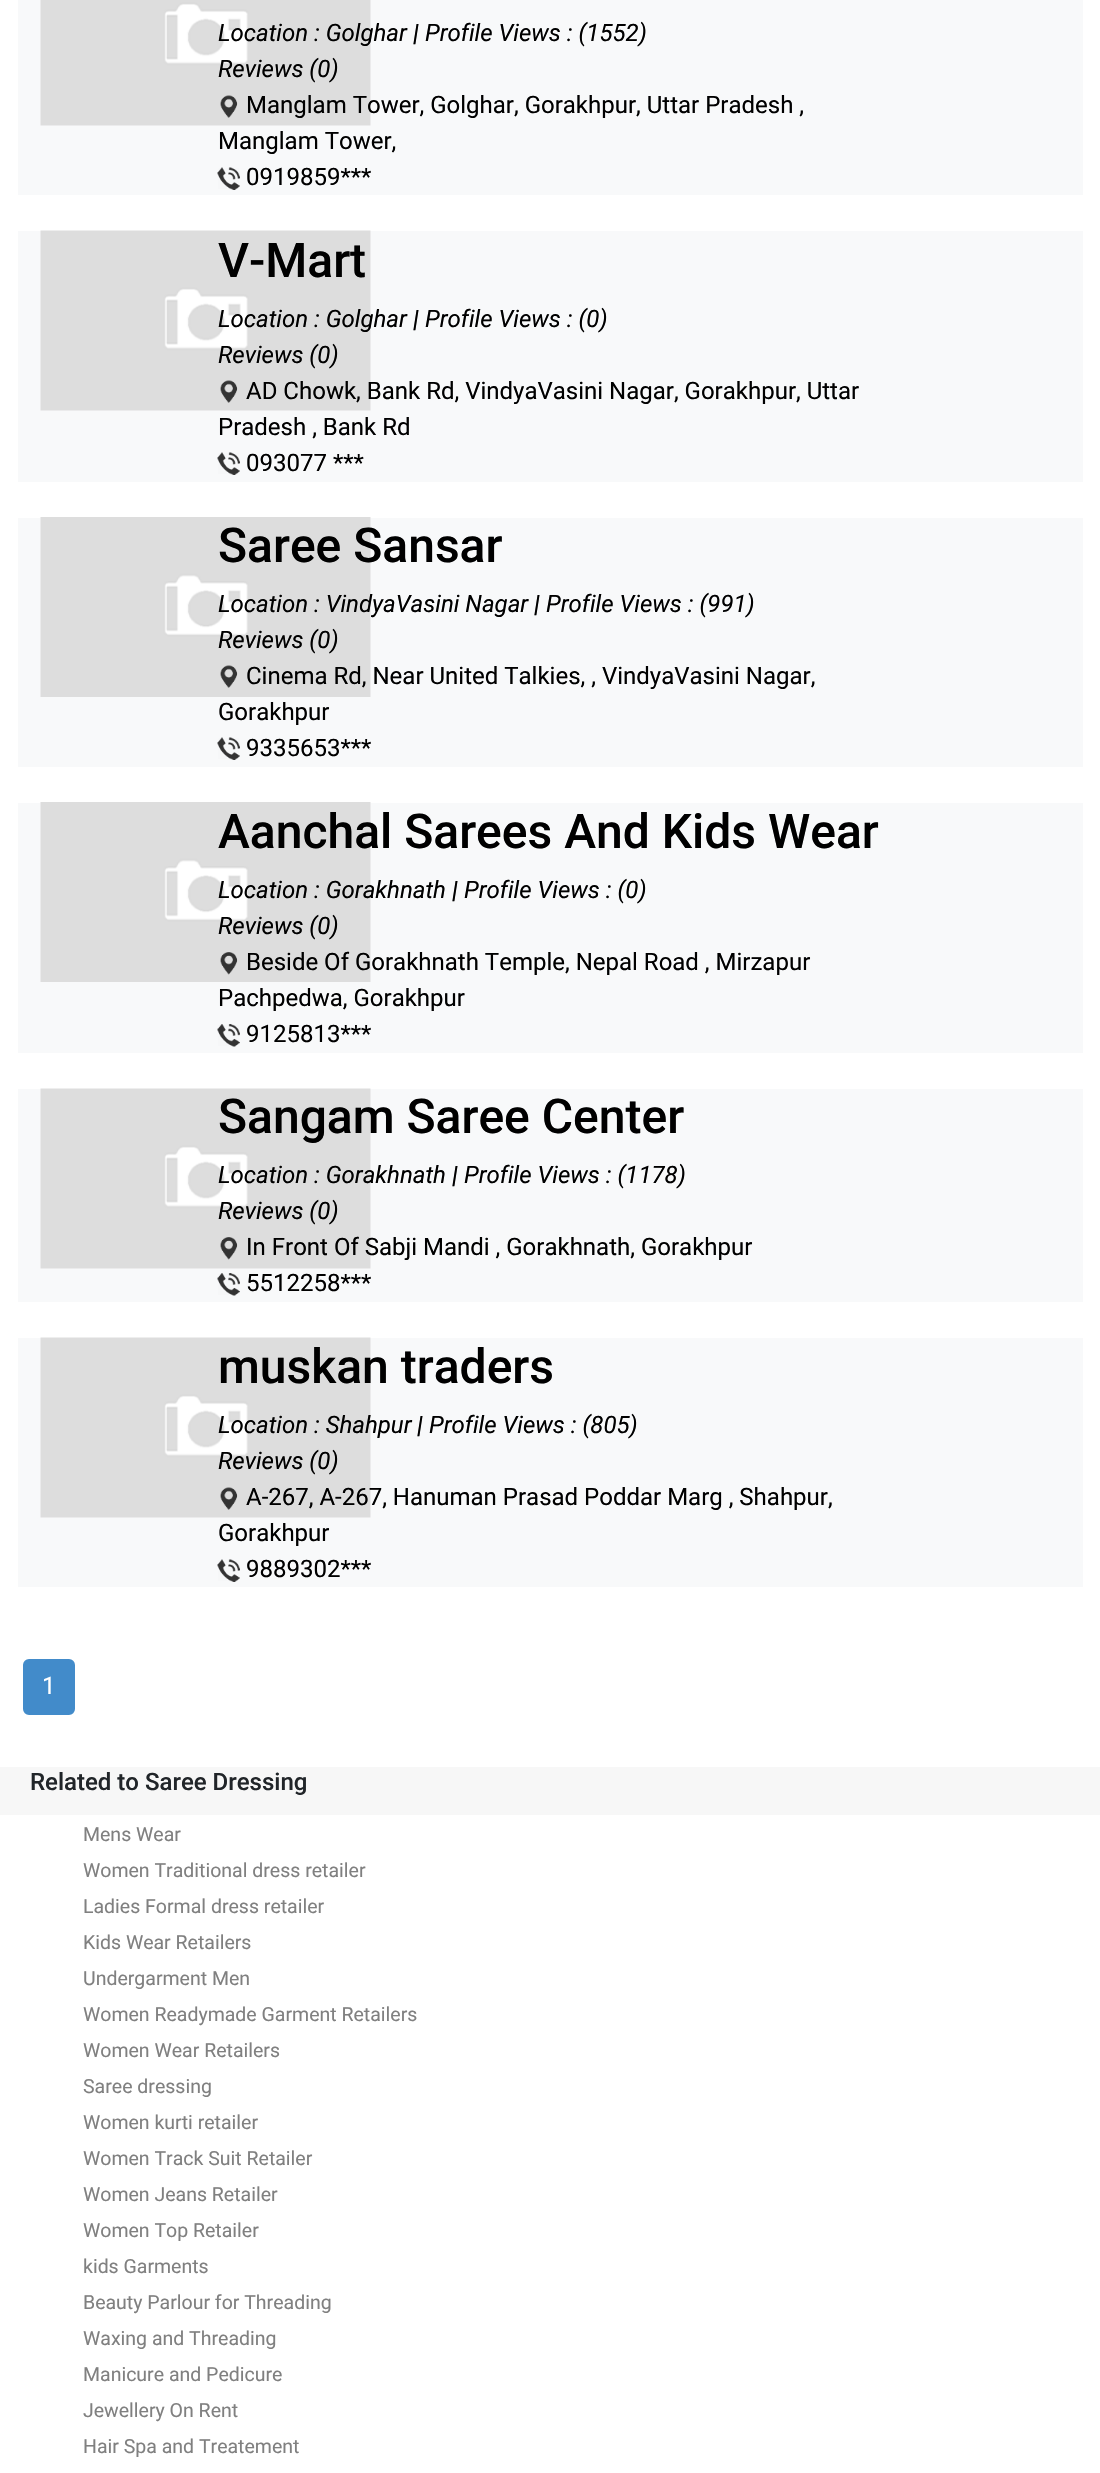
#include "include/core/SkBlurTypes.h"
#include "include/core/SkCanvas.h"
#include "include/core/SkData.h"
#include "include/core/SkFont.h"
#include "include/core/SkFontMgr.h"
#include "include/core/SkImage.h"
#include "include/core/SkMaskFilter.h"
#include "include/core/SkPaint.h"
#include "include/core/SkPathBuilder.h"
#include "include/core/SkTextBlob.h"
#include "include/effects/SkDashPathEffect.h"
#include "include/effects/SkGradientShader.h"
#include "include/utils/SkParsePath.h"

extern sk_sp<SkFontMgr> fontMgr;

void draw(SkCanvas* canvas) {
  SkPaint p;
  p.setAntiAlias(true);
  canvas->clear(SK_ColorWHITE);
  p.setColor(SkColorSetRGB(248, 249, 250));
  canvas->drawRect(SkRect::MakeLTRB(18, 0, 1083, 195), p);
  canvas->drawImageRect(SkImages::DeferredFromEncodedData(SkData::MakeFromFileName("images/1.png")), SkRect::MakeLTRB(40, 0, 371, 126), SkSamplingOptions());
  canvas->drawImageRect(SkImages::DeferredFromEncodedData(SkData::MakeFromFileName("images/2.png")), SkRect::MakeLTRB(220, 95, 238, 118), SkSamplingOptions());
  canvas->drawImageRect(SkImages::DeferredFromEncodedData(SkData::MakeFromFileName("images/3.png")), SkRect::MakeLTRB(217, 167, 240, 190), SkSamplingOptions());
  canvas->drawRect(SkRect::MakeLTRB(18, 231, 1083, 482), p);
  canvas->drawImageRect(SkImages::DeferredFromEncodedData(SkData::MakeFromFileName("images/4.png")), SkRect::MakeLTRB(40, 230, 371, 411), SkSamplingOptions());
  canvas->drawImageRect(SkImages::DeferredFromEncodedData(SkData::MakeFromFileName("images/2.png")), SkRect::MakeLTRB(220, 380, 238, 403), SkSamplingOptions());
  canvas->drawImageRect(SkImages::DeferredFromEncodedData(SkData::MakeFromFileName("images/3.png")), SkRect::MakeLTRB(217, 452, 240, 475), SkSamplingOptions());
  canvas->drawRect(SkRect::MakeLTRB(18, 518, 1083, 767), p);
  canvas->drawImageRect(SkImages::DeferredFromEncodedData(SkData::MakeFromFileName("images/5.png")), SkRect::MakeLTRB(40, 517, 371, 697), SkSamplingOptions());
  canvas->drawImageRect(SkImages::DeferredFromEncodedData(SkData::MakeFromFileName("images/2.png")), SkRect::MakeLTRB(220, 665, 238, 688), SkSamplingOptions());
  canvas->drawImageRect(SkImages::DeferredFromEncodedData(SkData::MakeFromFileName("images/3.png")), SkRect::MakeLTRB(217, 737, 240, 760), SkSamplingOptions());
  canvas->drawRect(SkRect::MakeLTRB(18, 803, 1083, 1053), p);
  canvas->drawImageRect(SkImages::DeferredFromEncodedData(SkData::MakeFromFileName("images/5.png")), SkRect::MakeLTRB(40, 802, 371, 982), SkSamplingOptions());
  canvas->drawImageRect(SkImages::DeferredFromEncodedData(SkData::MakeFromFileName("images/6.png")), SkRect::MakeLTRB(220, 952, 238, 975), SkSamplingOptions());
  canvas->drawImageRect(SkImages::DeferredFromEncodedData(SkData::MakeFromFileName("images/7.png")), SkRect::MakeLTRB(217, 1024, 240, 1047), SkSamplingOptions());
  canvas->drawRect(SkRect::MakeLTRB(18, 1089, 1083, 1302), p);
  canvas->drawImageRect(SkImages::DeferredFromEncodedData(SkData::MakeFromFileName("images/4.png")), SkRect::MakeLTRB(40, 1088, 371, 1269), SkSamplingOptions());
  canvas->drawImageRect(SkImages::DeferredFromEncodedData(SkData::MakeFromFileName("images/6.png")), SkRect::MakeLTRB(220, 1237, 238, 1260), SkSamplingOptions());
  canvas->drawImageRect(SkImages::DeferredFromEncodedData(SkData::MakeFromFileName("images/7.png")), SkRect::MakeLTRB(217, 1273, 240, 1296), SkSamplingOptions());
  canvas->drawRect(SkRect::MakeLTRB(18, 1338, 1083, 1587), p);
  canvas->drawImageRect(SkImages::DeferredFromEncodedData(SkData::MakeFromFileName("images/8.png")), SkRect::MakeLTRB(40, 1337, 371, 1518), SkSamplingOptions());
  canvas->drawImageRect(SkImages::DeferredFromEncodedData(SkData::MakeFromFileName("images/2.png")), SkRect::MakeLTRB(220, 1487, 238, 1510), SkSamplingOptions());
  canvas->drawImageRect(SkImages::DeferredFromEncodedData(SkData::MakeFromFileName("images/3.png")), SkRect::MakeLTRB(217, 1559, 240, 1582), SkSamplingOptions());
  p.setColor(SkColorSetRGB(66, 139, 202));
  canvas->drawRoundRect(SkRect::MakeLTRB(24, 1660, 74, 1714), 5, 5, p);
  p.setStyle(SkPaint::kStroke_Style);
  p.setStrokeWidth(2);
  canvas->drawRoundRect(SkRect::MakeLTRB(24, 1660, 74, 1714), 5, 5, p);
  p.setStyle(SkPaint::kFill_Style);
  p.setColor(SkColorSetRGB(247, 247, 247));
  canvas->drawRect(SkRect::MakeLTRB(0, 1767, 1100, 1815), p);
  SkFont font1(fontMgr->matchFamilyStyle("Roboto", SkFontStyle::Italic()), 24);
  font1.setSubpixel(true);
  p.setColor(SK_ColorBLACK);
  canvas->drawString("Location : Golghar", 218, 41, font1, p);
  SkFont font2(fontMgr->matchFamilyStyle("Roboto", SkFontStyle::BoldItalic()), 24);
  font2.setSubpixel(true);
  canvas->drawString("|", 413, 41, font2, p);
  canvas->drawString("Profile Views : (1552)", 425, 41, font1, p);
  canvas->drawString("Reviews (0)", 218, 77, font1, p);
  SkFont font3(fontMgr->matchFamilyStyle("Roboto", SkFontStyle::Normal()), 24);
  font3.setSubpixel(true);
  canvas->drawString("Manglam Tower, Golghar, Gorakhpur, Uttar Pradesh ,", 246, 113, font3, p);
  canvas->drawString("Manglam Tower,", 218, 149, font3, p);
  canvas->drawString("0919859***", 246, 185, font3, p);
  SkFont font4(fontMgr->matchFamilyStyle("Roboto", SkFontStyle(500, SkFontStyle::kNormal_Width, SkFontStyle::kUpright_Slant)), 48);
  font4.setSubpixel(true);
  canvas->drawString("V-Mart", 218, 277, font4, p);
  canvas->drawString("Location : Golghar", 218, 327, font1, p);
  canvas->drawString("|", 413, 327, font2, p);
  canvas->drawString("Profile Views : (0)", 425, 327, font1, p);
  canvas->drawString("Reviews (0)", 218, 363, font1, p);
  canvas->drawString("AD Chowk, Bank Rd, VindyaVasini Nagar, Gorakhpur, Uttar", 246, 399, font3, p);
  canvas->drawString("Pradesh , Bank Rd", 218, 435, font3, p);
  canvas->drawString("093077 ***", 246, 471, font3, p);
  canvas->drawString("Saree Sansar", 218, 562, font4, p);
  canvas->drawString("Location : VindyaVasini Nagar", 218, 612, font1, p);
  canvas->drawString("|", 534, 612, font2, p);
  canvas->drawString("Profile Views : (991)", 546, 612, font1, p);
  canvas->drawString("Reviews (0)", 218, 648, font1, p);
  canvas->drawString("Cinema Rd, Near United Talkies, , VindyaVasini Nagar,", 246, 684, font3, p);
  canvas->drawString("Gorakhpur", 218, 720, font3, p);
  canvas->drawString("9335653***", 246, 756, font3, p);
  canvas->drawString("Aanchal Sarees And Kids Wear", 218, 848, font4, p);
  canvas->drawString("Location : Gorakhnath", 218, 898, font1, p);
  canvas->drawString("|", 452, 898, font2, p);
  canvas->drawString("Profile Views : (0)", 464, 898, font1, p);
  canvas->drawString("Reviews (0)", 218, 934, font1, p);
  canvas->drawString("Beside Of Gorakhnath Temple, Nepal Road , Mirzapur", 246, 970, font3, p);
  canvas->drawString("Pachpedwa, Gorakhpur", 218, 1006, font3, p);
  canvas->drawString("9125813***", 246, 1042, font3, p);
  canvas->drawString("Sangam Saree Center", 218, 1133, font4, p);
  canvas->drawString("Location : Gorakhnath", 218, 1183, font1, p);
  canvas->drawString("|", 452, 1183, font2, p);
  canvas->drawString("Profile Views : (1178)", 464, 1183, font1, p);
  canvas->drawString("Reviews (0)", 218, 1219, font1, p);
  canvas->drawString("In Front Of Sabji Mandi , Gorakhnath, Gorakhpur", 246, 1255, font3, p);
  canvas->drawString("5512258***", 246, 1291, font3, p);
  canvas->drawString("muskan traders", 218, 1383, font4, p);
  canvas->drawString("Location : Shahpur", 218, 1433, font1, p);
  canvas->drawString("|", 417, 1433, font2, p);
  canvas->drawString("Profile Views : (805)", 429, 1433, font1, p);
  canvas->drawString("Reviews (0)", 218, 1469, font1, p);
  canvas->drawString("A-267, A-267, Hanuman Prasad Poddar Marg , Shahpur,", 246, 1505, font3, p);
  canvas->drawString("Gorakhpur", 218, 1541, font3, p);
  canvas->drawString("9889302***", 246, 1577, font3, p);
  p.setColor(SK_ColorWHITE);
  canvas->drawString("1", 42, 1694, font3, p);
  SkFont font5(fontMgr->matchFamilyStyle("Roboto", SkFontStyle(500, SkFontStyle::kNormal_Width, SkFontStyle::kUpright_Slant)), 24);
  font5.setSubpixel(true);
  p.setColor(SkColorSetRGB(33, 37, 41));
  canvas->drawString("Related to Saree Dressing", 30, 1790, font5, p);
  SkFont font6(fontMgr->matchFamilyStyle("Roboto", SkFontStyle::Normal()), 19.5f);
  font6.setSubpixel(true);
  p.setColor(SkColorSetRGB(128, 128, 128));
  canvas->drawString("Mens Wear", 83, 1841, font6, p);
  canvas->drawString("Women Traditional dress retailer", 83, 1877, font6, p);
  canvas->drawString("Ladies Formal dress retailer", 83, 1913, font6, p);
  canvas->drawString("Kids Wear Retailers", 83, 1949, font6, p);
  canvas->drawString("Undergarment Men", 83, 1985, font6, p);
  canvas->drawString("Women Readymade Garment Retailers", 83, 2021, font6, p);
  canvas->drawString("Women Wear Retailers", 83, 2057, font6, p);
  canvas->drawString("Saree dressing", 83, 2093, font6, p);
  canvas->drawString("Women kurti retailer", 83, 2129, font6, p);
  canvas->drawString("Women Track Suit Retailer", 83, 2165, font6, p);
  canvas->drawString("Women Jeans Retailer", 83, 2201, font6, p);
  canvas->drawString("Women Top Retailer", 83, 2237, font6, p);
  canvas->drawString("kids Garments", 83, 2273, font6, p);
  canvas->drawString("Beauty Parlour for Threading", 83, 2309, font6, p);
  canvas->drawString("Waxing and Threading", 83, 2345, font6, p);
  canvas->drawString("Manicure and Pedicure", 83, 2381, font6, p);
  canvas->drawString("Jewellery On Rent", 83, 2417, font6, p);
  canvas->drawString("Hair Spa and Treatement", 83, 2453, font6, p);
}
